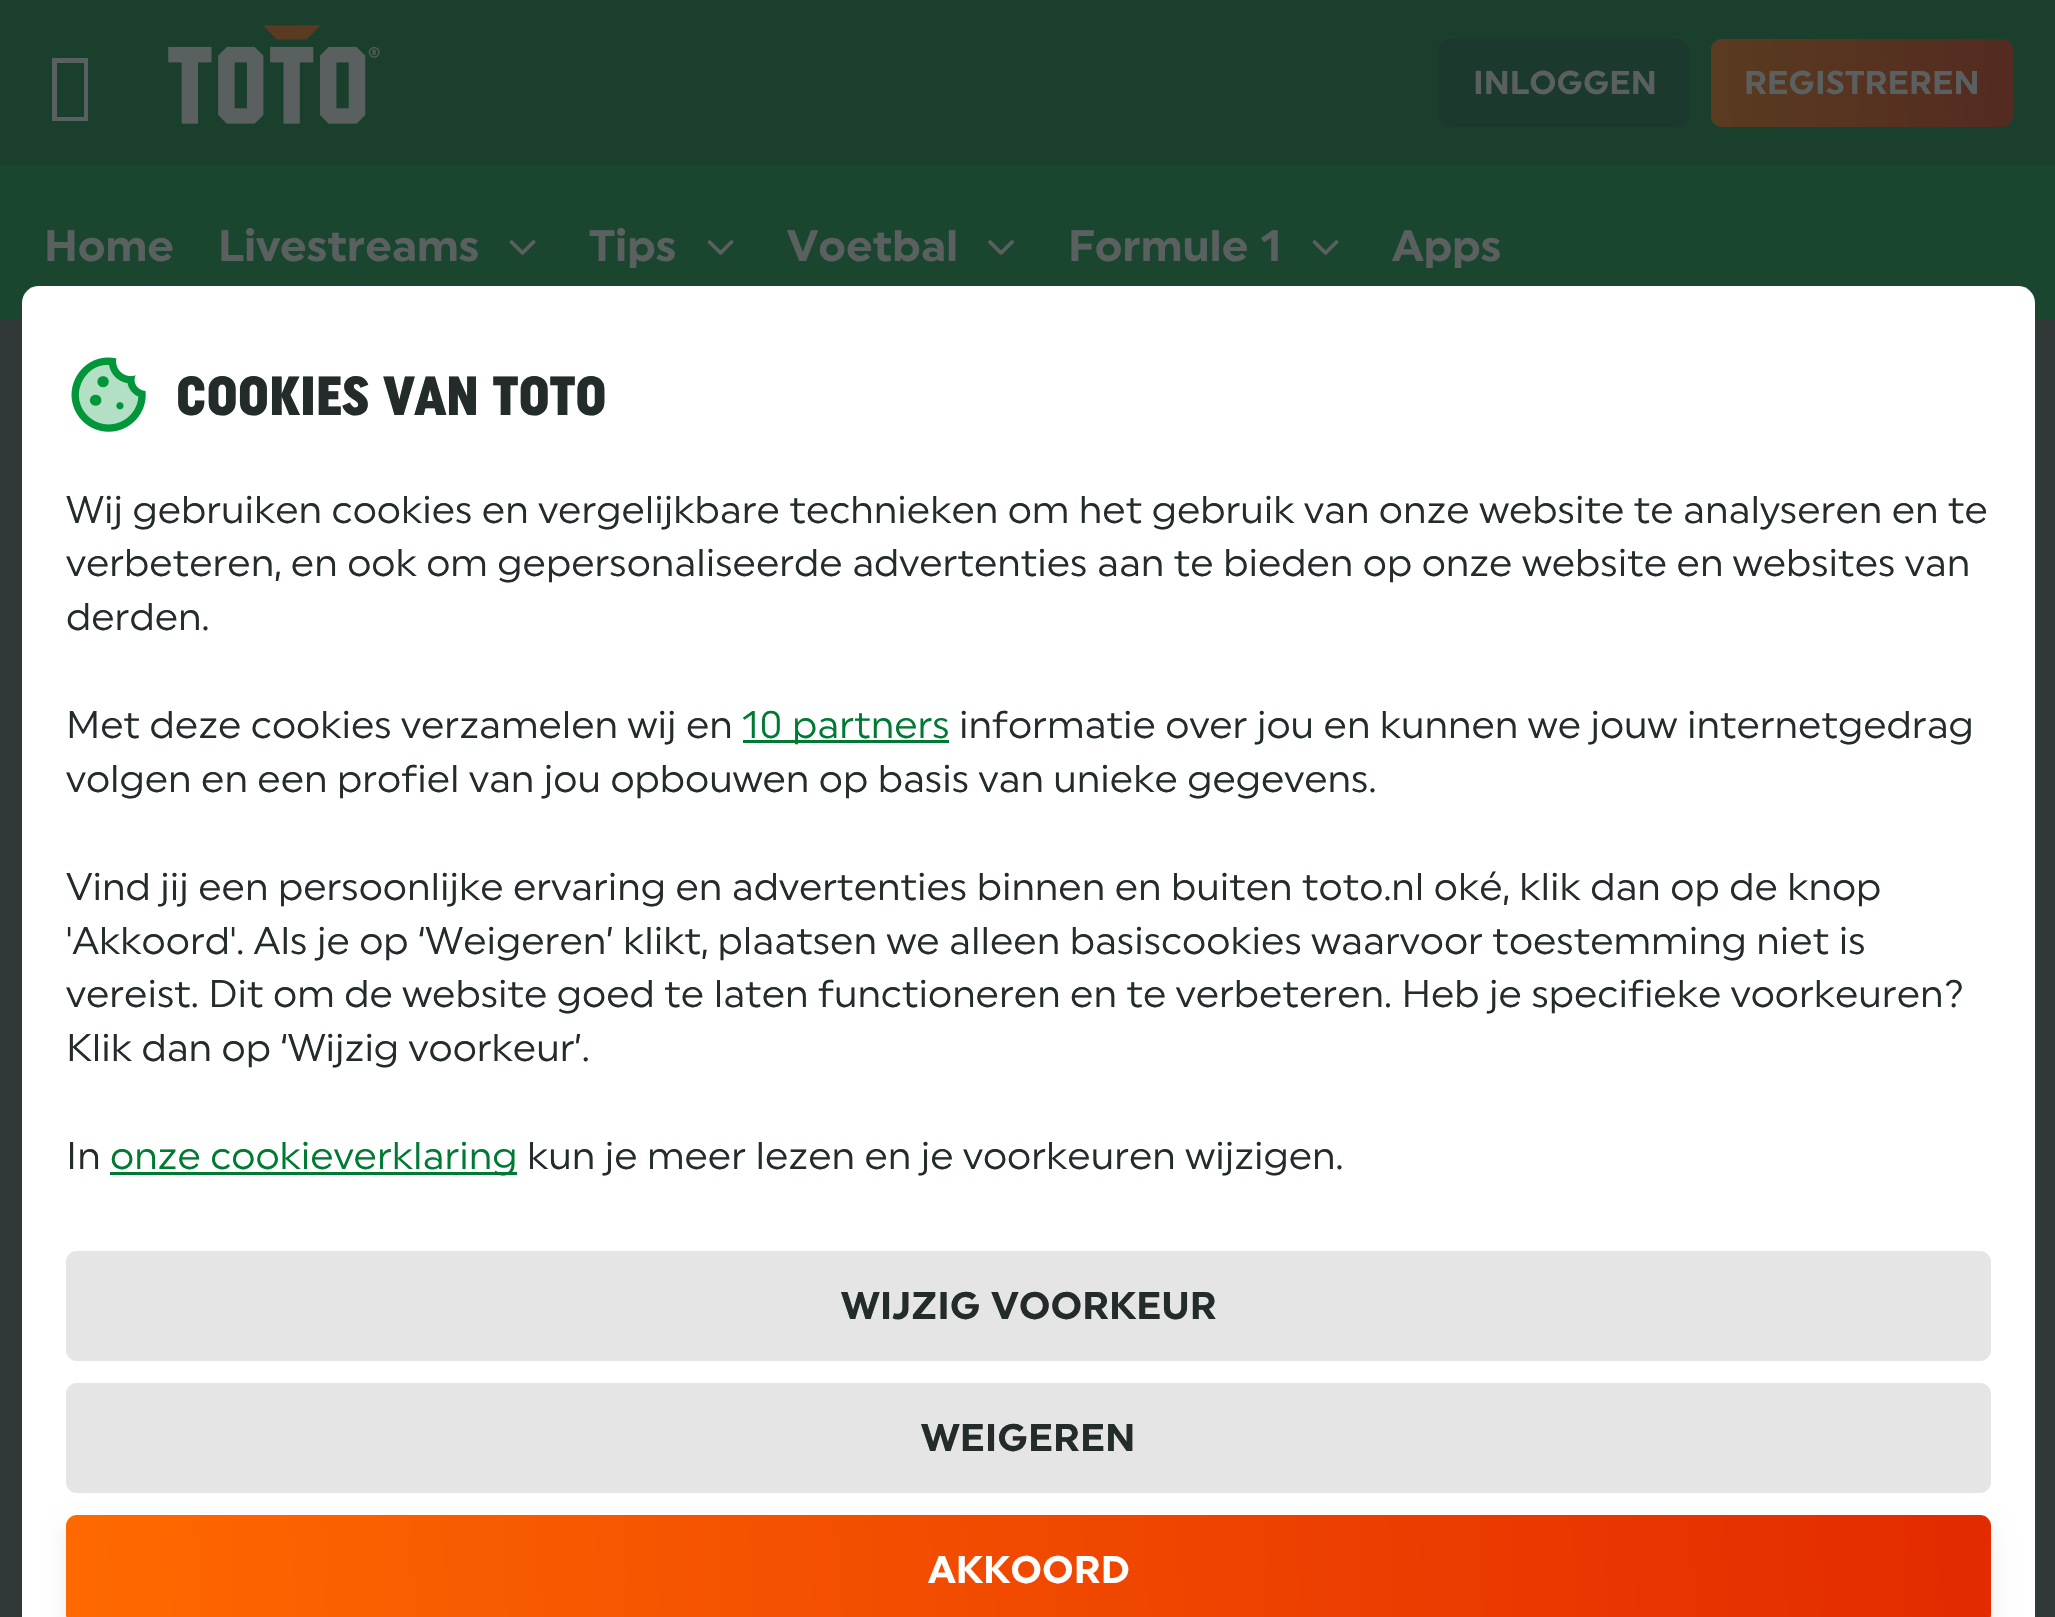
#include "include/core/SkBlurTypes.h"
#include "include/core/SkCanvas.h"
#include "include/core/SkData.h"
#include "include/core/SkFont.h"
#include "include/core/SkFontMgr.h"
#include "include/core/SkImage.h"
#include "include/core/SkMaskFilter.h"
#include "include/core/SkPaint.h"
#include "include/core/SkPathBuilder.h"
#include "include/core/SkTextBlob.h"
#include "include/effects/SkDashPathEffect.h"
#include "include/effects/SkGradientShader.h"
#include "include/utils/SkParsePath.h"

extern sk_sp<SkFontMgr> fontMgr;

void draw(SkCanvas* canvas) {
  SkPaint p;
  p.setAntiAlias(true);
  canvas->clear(SkColorSetRGB(49, 56, 56));
  p.setColor(SkColorSetRGB(26, 63, 45));
  canvas->drawRect(SkRect::MakeLTRB(0, 0, 2055, 165), p);
  p.setColor(SkColorSetRGB(90, 96, 96));
  canvas->drawPath(SkPathBuilder().moveTo(52, 121).lineTo(52, 58).lineTo(88, 58).lineTo(88, 121).close().moveTo(57, 117).lineTo(84, 117).lineTo(84, 63).lineTo(57, 63).close().detach(), p);
  canvas->drawImageRect(SkImages::DeferredFromEncodedData(SkData::MakeFromFileName("images/1.png")), SkRect::MakeLTRB(168, 25, 380, 124), SkSamplingOptions());
  p.setColor(SkColorSetRGB(27, 58, 45));
  canvas->drawRoundRect(SkRect::MakeLTRB(1438, 39, 1689, 127), 11, 11, p);
  {
    const SkColor colors[] = {SkColorSetRGB(90, 59, 32), SkColorSetRGB(83, 43, 32)};
    const float stops[] = {0, 0.98f};
    const SkPoint ends[] = {{1709, 91}, {2015, 74}};
    p.setShader(SkGradientShader::MakeLinear(ends, colors, stops, 2, SkTileMode::kClamp));
    p.setAlpha(255);
  }
  canvas->drawRoundRect(SkRect::MakeLTRB(1711, 39, 2013, 127), 11, 11, p);
  p.setShader(nullptr);
  p.setColor(SkColorSetRGB(26, 70, 47));
  canvas->drawRect(SkRect::MakeLTRB(0, 165, 2055, 319), p);
  p.setColor(SK_ColorWHITE);
  canvas->drawPath(SkPathBuilder().moveTo(55, 286).lineTo(2002, 286).cubicTo(2020, 286, 2035, 301, 2035, 319).lineTo(2035, 1617).lineTo(22, 1617).lineTo(22, 319).cubicTo(22, 301, 37, 286, 55, 286).close().detach(), p);
  canvas->drawPath(SkPathBuilder().moveTo(39, 286).lineTo(2018, 286).cubicTo(2027.5f, 286, 2035, 293.5f, 2035, 303).lineTo(2035, 440).lineTo(22, 440).lineTo(22, 303).cubicTo(22, 293.5f, 29.5f, 286, 39, 286).close().detach(), p);
  canvas->drawImageRect(SkImages::DeferredFromEncodedData(SkData::MakeFromFileName("images/2.png")), SkRect::MakeLTRB(71, 357, 146, 432), SkSamplingOptions());
  p.setColor(SkColorSetRGB(0, 122, 51));
  canvas->drawRect(SkRect::MakeLTRB(743, 740, 949, 743), p);
  canvas->drawRect(SkRect::MakeLTRB(110, 1172, 517, 1175), p);
  p.setColor(SkColorSetRGB(229, 229, 229));
  canvas->drawRoundRect(SkRect::MakeLTRB(66, 1251, 1991, 1361), 11, 11, p);
  canvas->drawRoundRect(SkRect::MakeLTRB(66, 1383, 1991, 1493), 11, 11, p);
  p.setColor(SkColorSetARGB(20, 0, 0, 0));
  p.setMaskFilter(SkMaskFilter::MakeBlur(kNormal_SkBlurStyle, 11));
  canvas->drawRoundRect(SkRect::MakeLTRB(66, 1526, 1991, 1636), 11, 11, p);
  p.setMaskFilter(nullptr);
  {
    const SkColor colors[] = {SkColorSetRGB(255, 105, 0), SkColorSetRGB(227, 43, 0)};
    const float stops[] = {0, 0.98f};
    const SkPoint ends[] = {{66, 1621}, {1991, 1520}};
    p.setShader(SkGradientShader::MakeLinear(ends, colors, stops, 2, SkTileMode::kClamp));
    p.setAlpha(255);
  }
  canvas->drawRoundRect(SkRect::MakeLTRB(66, 1515, 1991, 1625), 11, 11, p);
  canvas->drawImageRect(SkImages::DeferredFromEncodedData(SkData::MakeFromFileName("images/3.png")), SkRect::MakeLTRB(509, 240, 536, 255), SkSamplingOptions());
  canvas->drawImageRect(SkImages::DeferredFromEncodedData(SkData::MakeFromFileName("images/3.png")), SkRect::MakeLTRB(707, 240, 734, 255), SkSamplingOptions());
  canvas->drawImageRect(SkImages::DeferredFromEncodedData(SkData::MakeFromFileName("images/4.png")), SkRect::MakeLTRB(988, 240, 1014, 255), SkSamplingOptions());
  canvas->drawImageRect(SkImages::DeferredFromEncodedData(SkData::MakeFromFileName("images/3.png")), SkRect::MakeLTRB(1312, 240, 1339, 255), SkSamplingOptions());
  SkFont font1(fontMgr->matchFamilyStyle("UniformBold", SkFontStyle::Bold()), 33);
  font1.setSubpixel(true);
  p.setShader(nullptr);
  p.setColor(SkColorSetRGB(90, 96, 96));
  canvas->drawString("INLOGGEN", 1473, 94, font1, p);
  canvas->drawString("REGISTREREN", 1744, 94, font1, p);
  SkFont font2(fontMgr->matchFamilyStyle("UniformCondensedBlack", SkFontStyle(900, SkFontStyle::kNormal_Width, SkFontStyle::kUpright_Slant)), 55);
  font2.setSubpixel(true);
  p.setColor(SkColorSetRGB(35, 43, 43));
  canvas->drawString("COOKIES VAN TOTO", 176, 415, font2, p);
  SkFont font3(fontMgr->matchFamilyStyle("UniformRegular", SkFontStyle::Normal()), 38.5f);
  font3.setSubpixel(true);
  canvas->drawString("Wij gebruiken cookies en vergelijkbare technieken om het gebruik van onze website te analyseren en te", 66, 523, font3, p);
  canvas->drawString("verbeteren, en ook om gepersonaliseerde advertenties aan te bieden op onze website en websites van", 66, 576, font3, p);
  canvas->drawString("derden.", 66, 630, font3, p);
  canvas->drawString("Met deze cookies verzamelen wij en", 66, 738, font3, p);
  p.setColor(SkColorSetRGB(0, 122, 51));
  canvas->drawString("10 partners", 742, 738, font3, p);
  p.setColor(SkColorSetRGB(35, 43, 43));
  canvas->drawString("informatie over jou en kunnen we jouw internetgedrag", 959, 738, font3, p);
  canvas->drawString("volgen en een profiel van jou opbouwen op basis van unieke gegevens.", 66, 792, font3, p);
  canvas->drawString("Vind jij een persoonlijke ervaring en advertenties binnen en buiten toto.nl oké, klik dan op de knop", 66, 900, font3, p);
  canvas->drawString("'Akkoord'. Als je op ‘Weigeren’ klikt, plaatsen we alleen basiscookies waarvoor toestemming niet is", 66, 954, font3, p);
  canvas->drawString("vereist. Dit om de website goed te laten functioneren en te verbeteren. Heb je specifieke voorkeuren?", 66, 1007, font3, p);
  canvas->drawString("Klik dan op ‘Wijzig voorkeur’.", 66, 1061, font3, p);
  canvas->drawString("In", 66, 1169, font3, p);
  p.setColor(SkColorSetRGB(0, 122, 51));
  canvas->drawString("onze cookieverklaring", 110, 1169, font3, p);
  p.setColor(SkColorSetRGB(35, 43, 43));
  canvas->drawString("kun je meer lezen en je voorkeuren wijzigen.", 527, 1169, font3, p);
  SkFont font4(fontMgr->matchFamilyStyle("UniformBold", SkFontStyle::Bold()), 38.5f);
  font4.setSubpixel(true);
  canvas->drawString("WIJZIG VOORKEUR", 841, 1319, font4, p);
  canvas->drawString("WEIGEREN", 921, 1451, font4, p);
  p.setColor(SK_ColorWHITE);
  canvas->drawString("AKKOORD", 928, 1583, font4, p);
  SkFont font5(fontMgr->matchFamilyStyle("UniformBold", SkFontStyle::Bold()), 44);
  font5.setSubpixel(true);
  p.setColor(SkColorSetRGB(90, 96, 96));
  canvas->drawString("Home", 44, 261, font5, p);
  canvas->drawString("Livestreams", 218, 261, font5, p);
  canvas->drawString("Tips", 589, 261, font5, p);
  canvas->drawString("Voetbal", 787, 261, font5, p);
  canvas->drawString("Formule 1", 1068, 261, font5, p);
  canvas->drawString("Apps", 1392, 261, font5, p);
}
